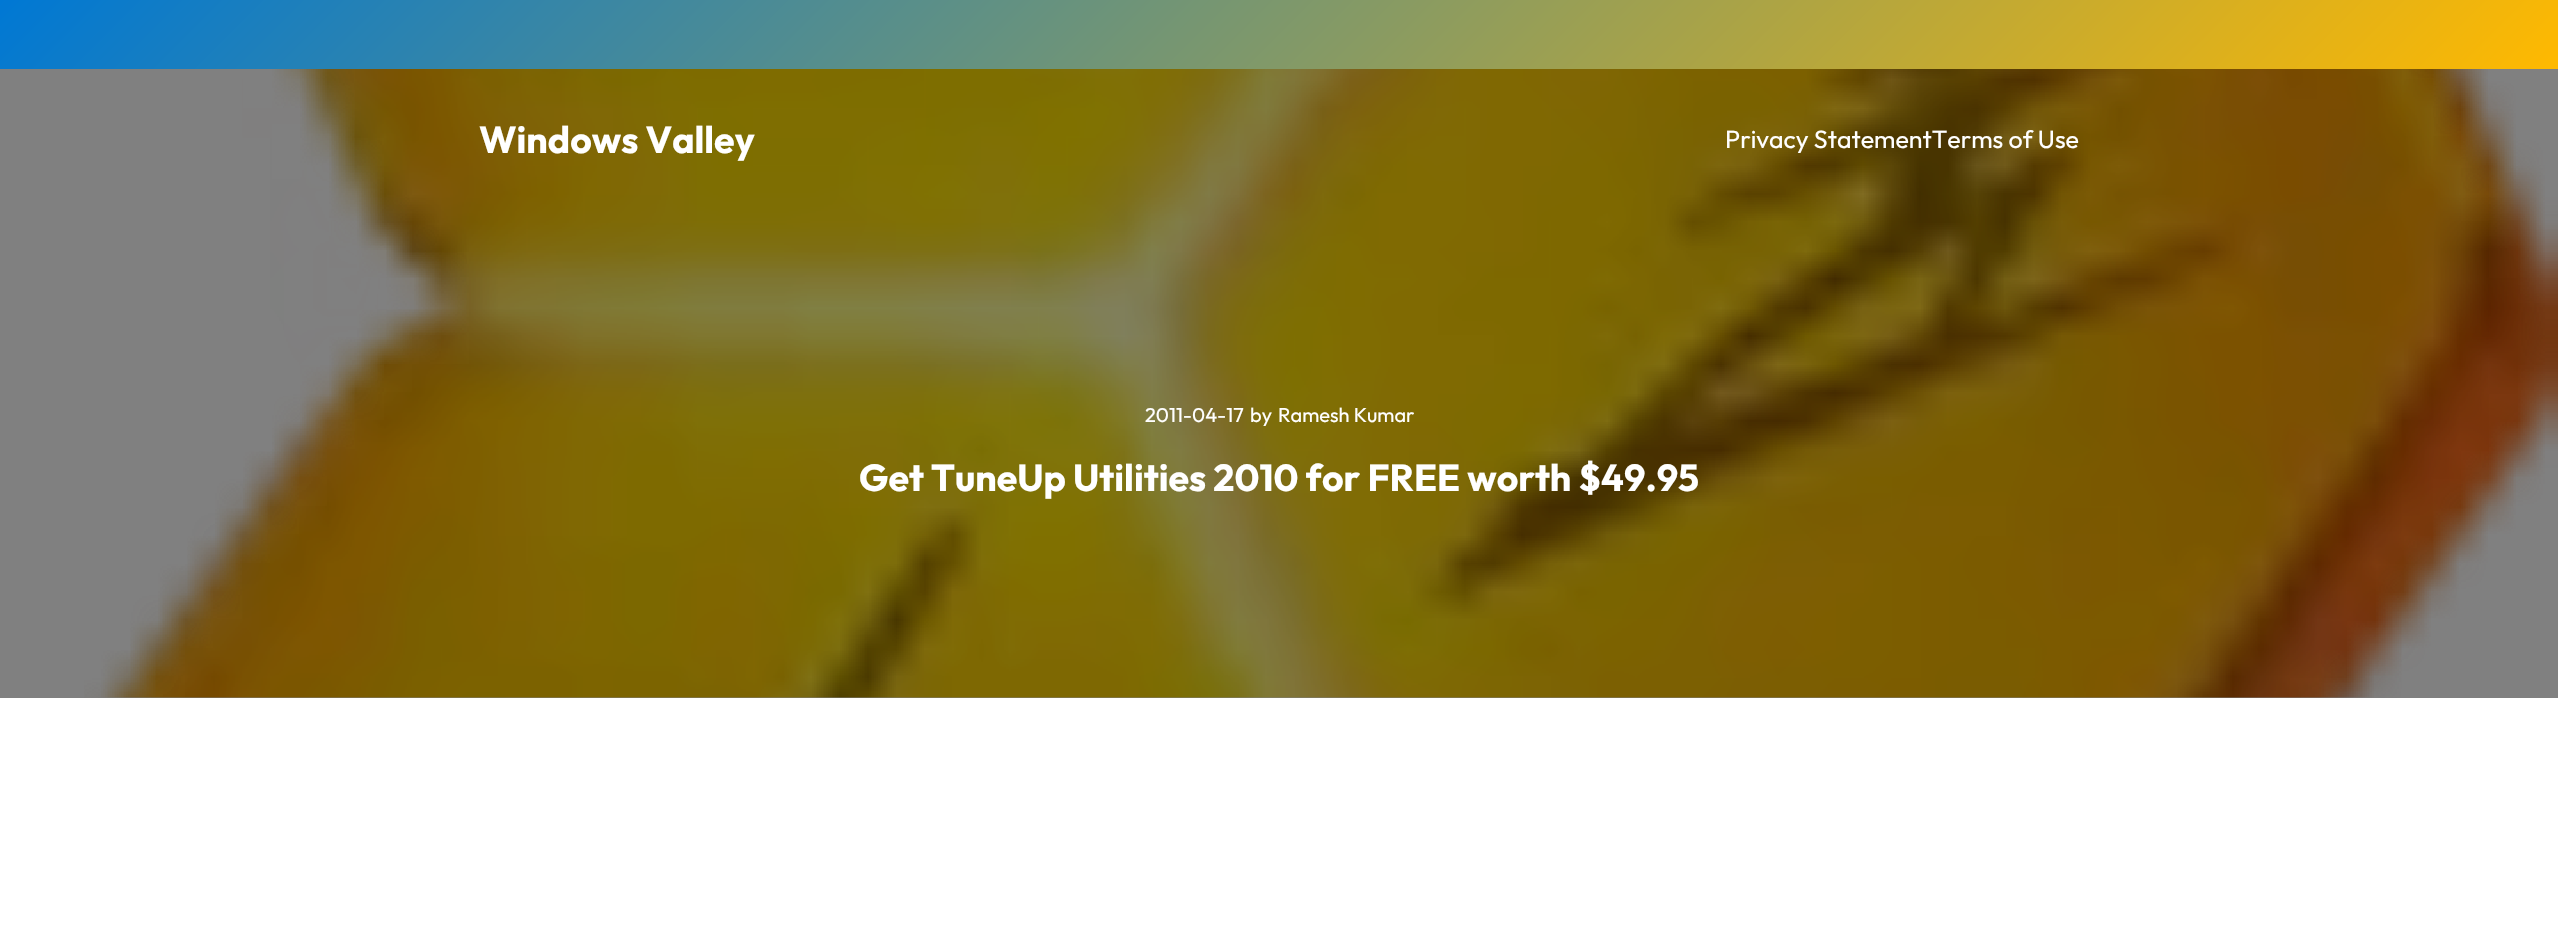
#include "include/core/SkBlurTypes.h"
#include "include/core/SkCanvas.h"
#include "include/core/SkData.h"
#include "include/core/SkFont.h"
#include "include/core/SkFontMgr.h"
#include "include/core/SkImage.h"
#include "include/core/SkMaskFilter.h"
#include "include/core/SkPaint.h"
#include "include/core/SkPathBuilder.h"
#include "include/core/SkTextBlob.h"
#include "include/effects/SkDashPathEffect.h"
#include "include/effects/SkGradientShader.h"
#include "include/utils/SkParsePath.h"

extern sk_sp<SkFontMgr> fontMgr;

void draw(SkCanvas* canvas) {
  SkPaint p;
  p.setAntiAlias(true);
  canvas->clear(SK_ColorWHITE);
  p.setColor(SkColorSetRGB(128, 128, 128));
  canvas->drawRect(SkRect::MakeLTRB(0, 69, 2558, 698), p);
  canvas->drawImageRect(SkImages::DeferredFromEncodedData(SkData::MakeFromFileName("images/1.png")), SkRect::MakeLTRB(84, 69, 2558, 698), SkSamplingOptions());
  {
    const SkColor colors[] = {SkColorSetRGB(0, 120, 212), SkColorSetRGB(255, 185, 0)};
    const float stops[] = {0, 1};
    const SkPoint ends[] = {{622, -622}, {1936, 691}};
    p.setShader(SkGradientShader::MakeLinear(ends, colors, stops, 2, SkTileMode::kClamp));
    p.setAlpha(255);
  }
  canvas->drawRect(SkRect::MakeLTRB(0, 0, 2558, 69), p);
  SkFont font1(fontMgr->matchFamilyStyle("Outfit", SkFontStyle::Bold()), 37.5f);
  font1.setSubpixel(true);
  p.setShader(nullptr);
  p.setColor(SK_ColorWHITE);
  canvas->drawString("Windows Valley", 479, 153, font1, p);
  SkFont font2(fontMgr->matchFamilyStyle("Outfit", SkFontStyle::Normal()), 25);
  font2.setSubpixel(true);
  canvas->drawString("Privacy StatementTerms of Use", 1725, 148, font2, p);
  SkFont font3(fontMgr->matchFamilyStyle("Outfit", SkFontStyle::Normal()), 20);
  font3.setSubpixel(true);
  canvas->drawString("2011-04-17", 1145, 422, font3, p);
  canvas->drawString("by", 1250, 422, font3, p);
  canvas->drawString("Ramesh Kumar", 1278, 422, font3, p);
  canvas->drawString("Get TuneUp Utilities 2010 for FREE worth $49.95", 859, 491, font1, p);
}
